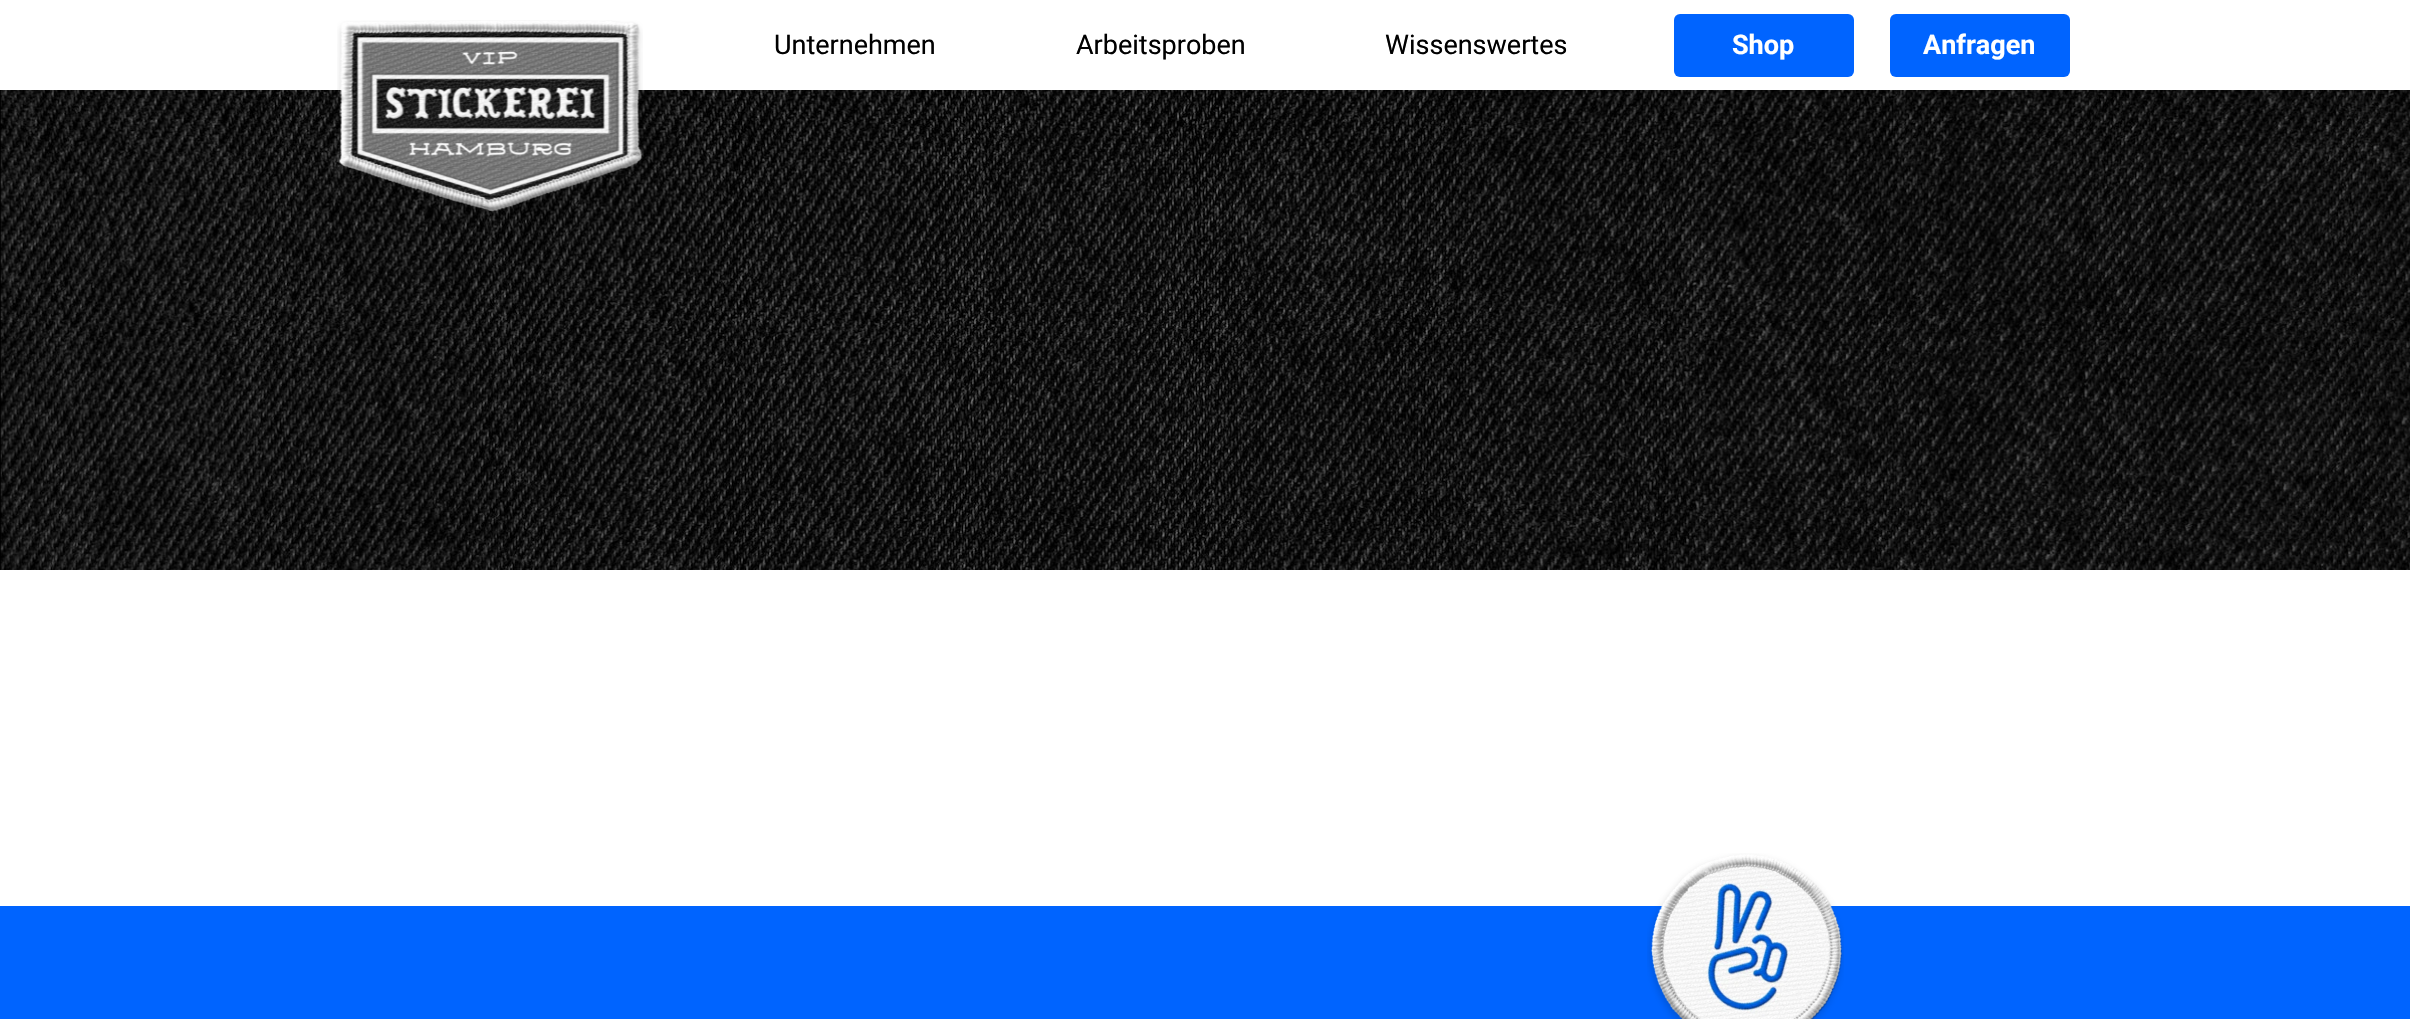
#include "include/core/SkBlurTypes.h"
#include "include/core/SkCanvas.h"
#include "include/core/SkData.h"
#include "include/core/SkFont.h"
#include "include/core/SkFontMgr.h"
#include "include/core/SkImage.h"
#include "include/core/SkMaskFilter.h"
#include "include/core/SkPaint.h"
#include "include/core/SkPathBuilder.h"
#include "include/core/SkTextBlob.h"
#include "include/effects/SkDashPathEffect.h"
#include "include/effects/SkGradientShader.h"
#include "include/utils/SkParsePath.h"

extern sk_sp<SkFontMgr> fontMgr;

void draw(SkCanvas* canvas) {
  SkPaint p;
  p.setAntiAlias(true);
  canvas->clear(SK_ColorWHITE);
  p.setColor(SK_ColorBLACK);
  canvas->drawRect(SkRect::MakeLTRB(0, 90, 1, 570), p);
  canvas->drawImageRect(SkImages::DeferredFromEncodedData(SkData::MakeFromFileName("images/2.png")), SkRect::MakeLTRB(0, 90, 2410, 570), SkSamplingOptions());
  canvas->drawImageRect(SkImages::DeferredFromEncodedData(SkData::MakeFromFileName("images/1.png")), SkRect::MakeLTRB(337, 20, 643, 214), SkSamplingOptions());
  p.setColor(SkColorSetRGB(0, 100, 255));
  canvas->drawRoundRect(SkRect::MakeLTRB(1674, 14, 1854, 77), 6, 6, p);
  canvas->drawRoundRect(SkRect::MakeLTRB(1890, 14, 2070, 77), 6, 6, p);
  canvas->drawRect(SkRect::MakeLTRB(0, 906, 2410, 1019), p);
  canvas->drawImageRect(SkImages::DeferredFromEncodedData(SkData::MakeFromFileName("images/3.png")), SkRect::MakeLTRB(1647, 853, 1844, 1019), SkSamplingOptions());
  SkFont font1(fontMgr->matchFamilyStyle("Roboto", SkFontStyle::Normal()), 27);
  font1.setSubpixel(true);
  p.setColor(SK_ColorBLACK);
  canvas->drawString("Unternehmen", 774, 54, font1, p);
  canvas->drawString("Arbeitsproben", 1076, 54, font1, p);
  canvas->drawString("Wissenswertes", 1385, 54, font1, p);
  SkFont font2(fontMgr->matchFamilyStyle("Roboto", SkFontStyle::Bold()), 27);
  font2.setSubpixel(true);
  p.setColor(SK_ColorWHITE);
  canvas->drawString("Shop", 1732, 54, font2, p);
  canvas->drawString("Anfragen", 1923, 54, font2, p);
}
